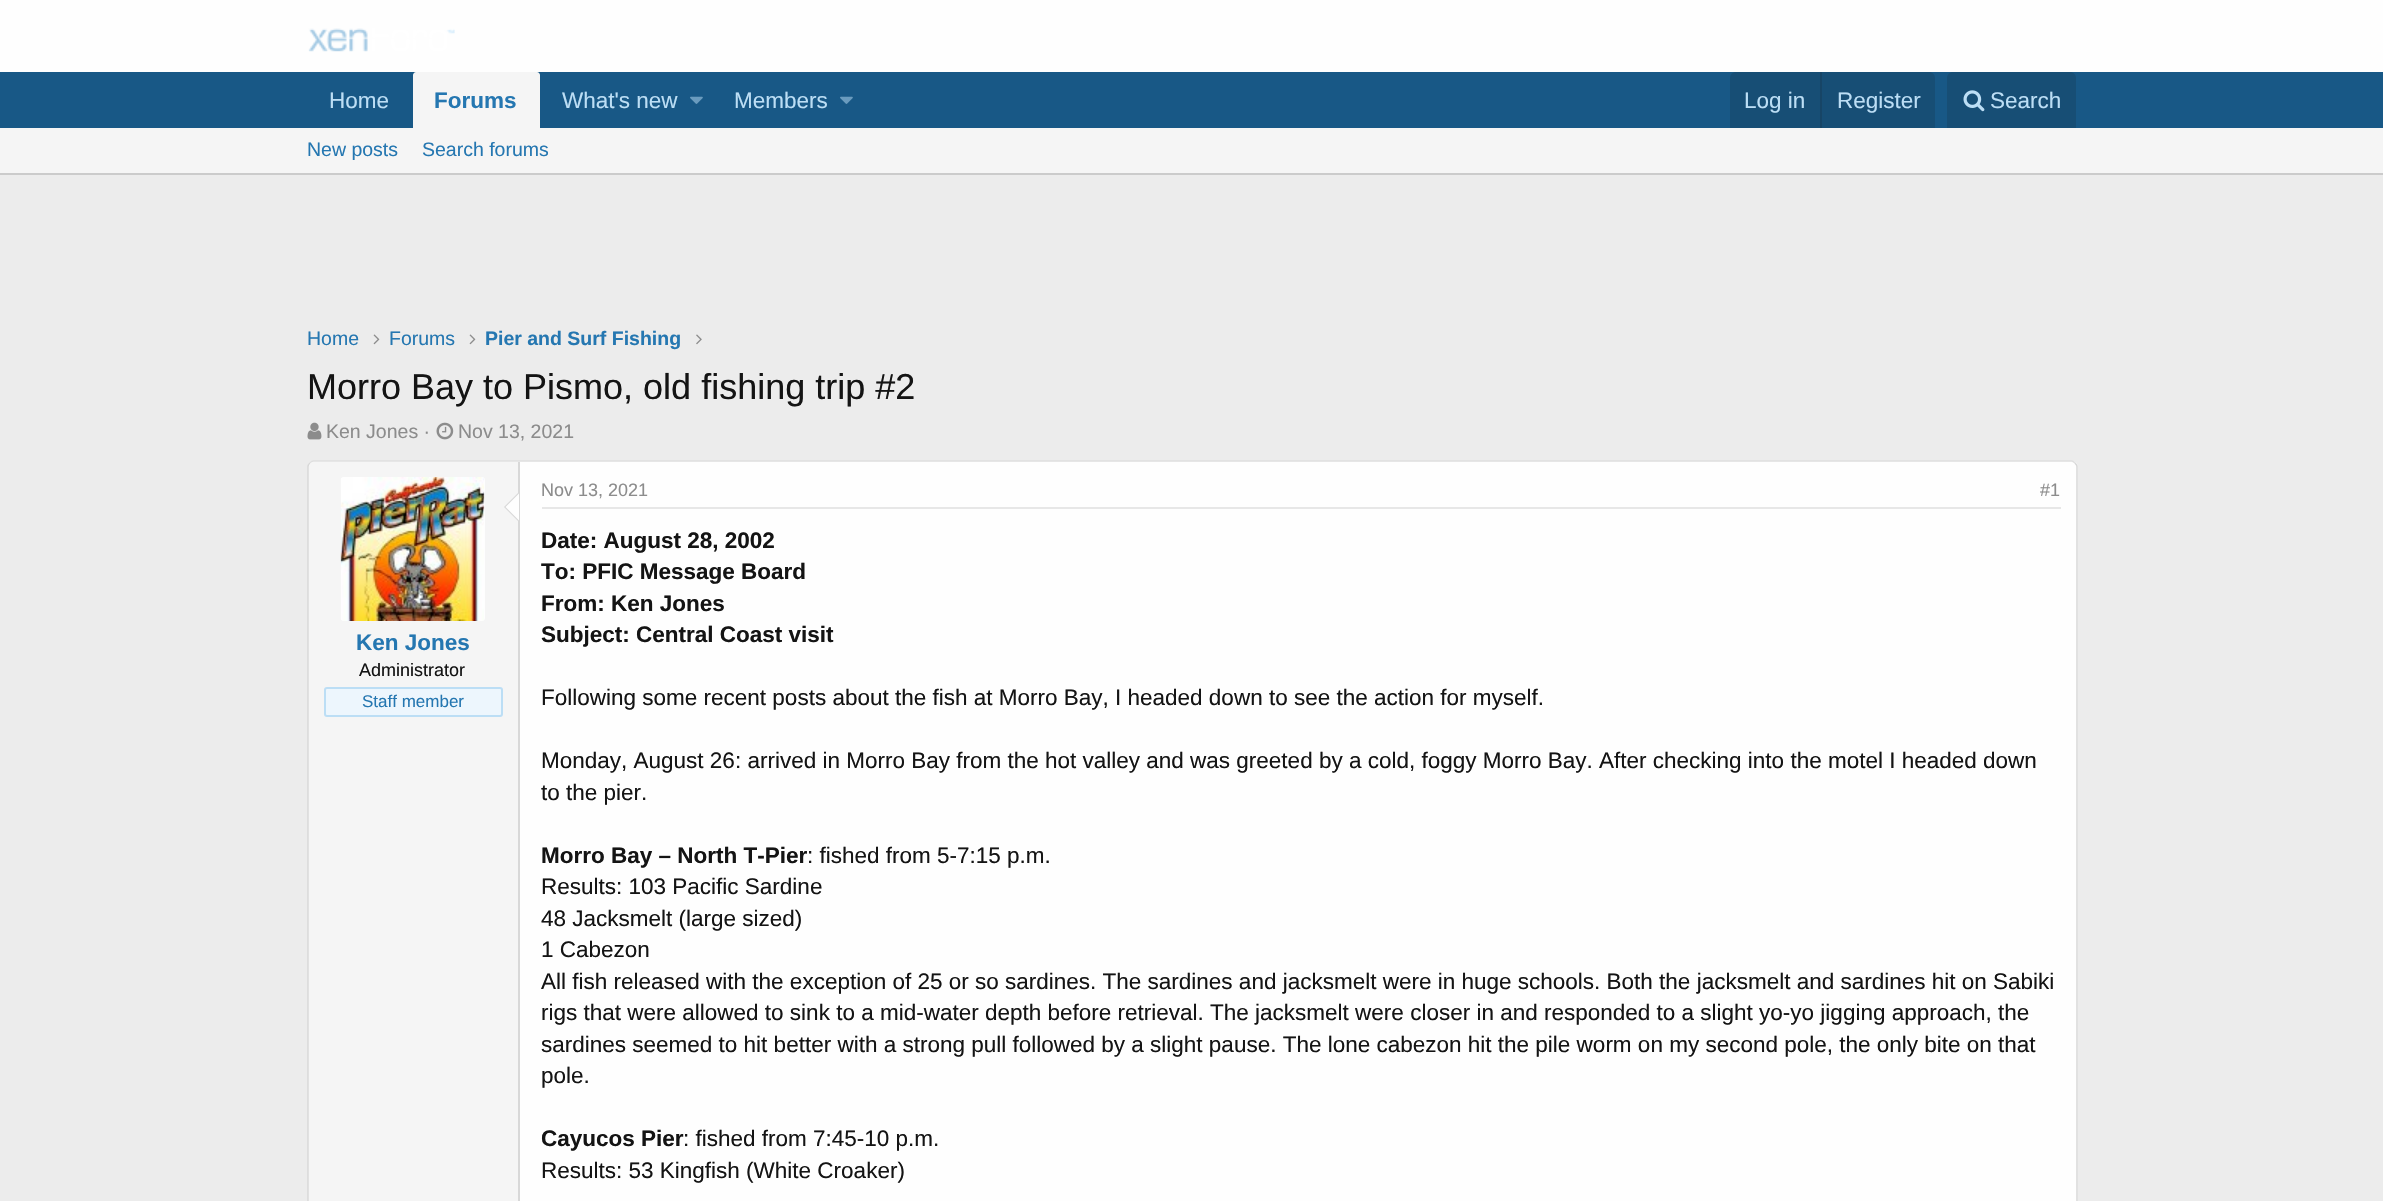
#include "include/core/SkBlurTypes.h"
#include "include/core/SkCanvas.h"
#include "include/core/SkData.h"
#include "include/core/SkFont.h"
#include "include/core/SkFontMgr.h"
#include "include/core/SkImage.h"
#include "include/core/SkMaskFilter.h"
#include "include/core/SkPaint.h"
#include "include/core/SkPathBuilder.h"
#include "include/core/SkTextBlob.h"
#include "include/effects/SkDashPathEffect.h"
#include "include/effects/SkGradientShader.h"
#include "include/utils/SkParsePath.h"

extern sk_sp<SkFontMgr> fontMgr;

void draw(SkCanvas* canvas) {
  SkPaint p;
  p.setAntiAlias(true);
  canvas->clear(SkColorSetRGB(236, 236, 236));
  p.setColor(SkColorSetRGB(254, 254, 254));
  canvas->drawRect(SkRect::MakeLTRB(0, 0, 2383, 72), p);
  canvas->drawImageRect(SkImages::DeferredFromEncodedData(SkData::MakeFromFileName("images/1.png")), SkRect::MakeLTRB(308, 28, 455, 52), SkSamplingOptions());
  p.setColor(SkColorSetRGB(24, 88, 134));
  canvas->drawRect(SkRect::MakeLTRB(0, 72, 2383, 128), p);
  p.setColor(SkColorSetRGB(245, 245, 245));
  canvas->drawPath(SkPathBuilder().moveTo(416, 72).lineTo(537, 72).cubicTo(538.5f, 72, 540, 73.5f, 540, 75).lineTo(540, 128).lineTo(413, 128).lineTo(413, 75).cubicTo(413, 73.5f, 414.5f, 72, 416, 72).close().detach(), p);
  canvas->drawImageRect(SkImages::DeferredFromEncodedData(SkData::MakeFromFileName("images/2.png")), SkRect::MakeLTRB(690, 96, 703, 104), SkSamplingOptions());
  canvas->drawImageRect(SkImages::DeferredFromEncodedData(SkData::MakeFromFileName("images/2.png")), SkRect::MakeLTRB(840, 96, 853, 104), SkSamplingOptions());
  p.setColor(SkColorSetRGB(23, 78, 117));
  canvas->drawPath(SkPathBuilder().moveTo(1736, 72).lineTo(1929, 72).cubicTo(1932.5f, 72, 1935, 74.5f, 1935, 78).lineTo(1935, 128).lineTo(1730, 128).lineTo(1730, 78).cubicTo(1730, 74.5f, 1732.5f, 72, 1736, 72).close().detach(), p);
  p.setColor(SkColorSetRGB(23, 69, 102));
  canvas->drawRect(SkRect::MakeLTRB(1820, 72, 1822, 128), p);
  p.setColor(SkColorSetRGB(23, 78, 117));
  canvas->drawPath(SkPathBuilder().moveTo(1953, 72).lineTo(2070, 72).cubicTo(2073.5f, 72, 2076, 74.5f, 2076, 78).lineTo(2076, 128).lineTo(1947, 128).lineTo(1947, 78).cubicTo(1947, 74.5f, 1949.5f, 72, 1953, 72).close().detach(), p);
  canvas->drawImageRect(SkImages::DeferredFromEncodedData(SkData::MakeFromFileName("images/3.png")), SkRect::MakeLTRB(1963, 90, 1985, 112), SkSamplingOptions());
  p.setColor(SkColorSetRGB(245, 245, 245));
  canvas->drawRect(SkRect::MakeLTRB(0, 128, 2383, 173), p);
  p.setColor(SkColorSetRGB(203, 203, 203));
  canvas->drawRect(SkRect::MakeLTRB(0, 173, 2383, 175), p);
  canvas->drawImageRect(SkImages::DeferredFromEncodedData(SkData::MakeFromFileName("images/4.png")), SkRect::MakeLTRB(373, 334, 380, 345), SkSamplingOptions());
  canvas->drawImageRect(SkImages::DeferredFromEncodedData(SkData::MakeFromFileName("images/4.png")), SkRect::MakeLTRB(469, 334, 476, 345), SkSamplingOptions());
  canvas->drawImageRect(SkImages::DeferredFromEncodedData(SkData::MakeFromFileName("images/5.png")), SkRect::MakeLTRB(696, 334, 702, 345), SkSamplingOptions());
  canvas->drawImageRect(SkImages::DeferredFromEncodedData(SkData::MakeFromFileName("images/6.png")), SkRect::MakeLTRB(307, 422, 322, 440), SkSamplingOptions());
  canvas->drawImageRect(SkImages::DeferredFromEncodedData(SkData::MakeFromFileName("images/7.png")), SkRect::MakeLTRB(436, 422, 454, 440), SkSamplingOptions());
  p.setColor(SkColorSetRGB(254, 254, 254));
  canvas->drawRoundRect(SkRect::MakeLTRB(308, 461, 2078, 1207), 6, 6, p);
  p.setStyle(SkPaint::kStroke_Style);
  p.setStrokeWidth(1.5f);
  p.setColor(SkColorSetRGB(223, 223, 223));
  canvas->drawPath(SkPathBuilder().moveTo(310, 463).cubicTo(311, 462, 312, 461, 313.5f, 461).lineTo(2071.5f, 461).cubicTo(2073, 461, 2074, 462, 2075, 463).detach(), p);
  p.setColor(SkColorSetRGB(216, 216, 216));
  canvas->drawPath(SkPathBuilder().moveTo(2075, 463).cubicTo(2076, 464, 2077, 465, 2077, 466.5f).lineTo(2077, 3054).cubicTo(2077, 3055.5f, 2076, 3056.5f, 2075, 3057.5f).detach(), p);
  canvas->drawPath(SkPathBuilder().moveTo(310, 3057.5f).cubicTo(309, 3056.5f, 308, 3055.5f, 308, 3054).lineTo(308, 466.5f).cubicTo(308, 465, 309, 464, 310, 463).detach(), p);
  p.setStyle(SkPaint::kFill_Style);
  p.setColor(SkColorSetRGB(245, 245, 245));
  canvas->drawPath(SkPathBuilder().moveTo(314, 462).lineTo(519, 462).lineTo(519, 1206).lineTo(314, 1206).cubicTo(311, 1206, 309, 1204, 309, 1201).lineTo(309, 467).cubicTo(309, 464, 311, 462, 314, 462).close().detach(), p);
  p.setColor(SkColorSetRGB(216, 216, 216));
  canvas->drawRect(SkRect::MakeLTRB(518, 462, 520, 1201), p);
  p.setColor(SkColorSetRGB(254, 254, 254));
  canvas->drawRoundRect(SkRect::MakeLTRB(341, 477, 485, 621), 3, 3, p);
  canvas->drawImageRect(SkImages::DeferredFromEncodedData(SkData::MakeFromFileName("images/8.png")), SkRect::MakeLTRB(340, 477, 485, 621), SkSamplingOptions());
  p.setColor(SkColorSetRGB(216, 216, 216));
  canvas->drawPath(SkPathBuilder().moveTo(519, 492).lineTo(519, 522).lineTo(504, 507).close().detach(), p);
  p.setColor(SkColorSetRGB(254, 254, 254));
  canvas->drawPath(SkPathBuilder().moveTo(519, 493.5f).lineTo(519, 520.5f).lineTo(505.5f, 507).close().detach(), p);
  p.setColor(SkColorSetRGB(237, 246, 253));
  canvas->drawRoundRect(SkRect::MakeLTRB(325, 688, 502, 716), 2, 2, p);
  p.setStyle(SkPaint::kStroke_Style);
  p.setStrokeWidth(2);
  p.setColor(SkColorSetRGB(188, 222, 245));
  canvas->drawRoundRect(SkRect::MakeLTRB(325, 688, 502, 716), 2, 2, p);
  p.setStyle(SkPaint::kFill_Style);
  p.setColor(SkColorSetRGB(231, 231, 231));
  canvas->drawRect(SkRect::MakeLTRB(542, 507, 2061, 509), p);
  SkFont font1(fontMgr->matchFamilyStyle("Liberation Sans", SkFontStyle::Normal()), 22.5f);
  font1.setSubpixel(true);
  p.setColor(SkColorSetRGB(188, 222, 245));
  canvas->drawString("Home", 329, 108, font1, p);
  SkFont font2(fontMgr->matchFamilyStyle("Liberation Sans", SkFontStyle::Bold()), 22.5f);
  font2.setSubpixel(true);
  p.setColor(SkColorSetRGB(37, 119, 177));
  canvas->drawString("Forums", 434, 108, font2, p);
  p.setColor(SkColorSetRGB(188, 222, 245));
  canvas->drawString("What's new", 562, 108, font1, p);
  canvas->drawString("Members", 734, 108, font1, p);
  canvas->drawString("Log in", 1744, 108, font1, p);
  canvas->drawString("Register", 1837, 108, font1, p);
  canvas->drawString("Search", 1990, 108, font1, p);
  SkFont font3(fontMgr->matchFamilyStyle("Liberation Sans", SkFontStyle::Normal()), 19.5f);
  font3.setSubpixel(true);
  p.setColor(SkColorSetRGB(37, 119, 177));
  canvas->drawString("New posts", 307, 156, font3, p);
  canvas->drawString("Search forums", 422, 156, font3, p);
  canvas->drawString("Home", 307, 345, font3, p);
  canvas->drawString("Forums", 389, 345, font3, p);
  SkFont font4(fontMgr->matchFamilyStyle("Liberation Sans", SkFontStyle::Bold()), 19.5f);
  font4.setSubpixel(true);
  canvas->drawString("Pier and Surf Fishing", 485, 345, font4, p);
  SkFont font5(fontMgr->matchFamilyStyle("Liberation Sans", SkFontStyle::Normal()), 36);
  font5.setSubpixel(true);
  p.setColor(SkColorSetRGB(20, 20, 20));
  canvas->drawString("Morro Bay to Pismo, old fishing trip #2", 307, 399, font5, p);
  p.setColor(SkColorSetRGB(140, 140, 140));
  canvas->drawString("Ken Jones ·", 326, 438, font3, p);
  canvas->drawString("Nov 13, 2021", 458, 438, font3, p);
  p.setColor(SkColorSetRGB(37, 119, 177));
  canvas->drawString("Ken Jones", 356, 650, font2, p);
  SkFont font6(fontMgr->matchFamilyStyle("Liberation Sans", SkFontStyle::Normal()), 18);
  font6.setSubpixel(true);
  p.setColor(SkColorSetRGB(20, 20, 20));
  canvas->drawString("Administrator", 359, 676, font6, p);
  SkFont font7(fontMgr->matchFamilyStyle("Liberation Sans", SkFontStyle::Normal()), 17);
  font7.setSubpixel(true);
  p.setColor(SkColorSetRGB(37, 119, 177));
  canvas->drawString("Staff member", 362, 707, font7, p);
  p.setColor(SkColorSetRGB(140, 140, 140));
  canvas->drawString("Nov 13, 2021", 541, 496, font6, p);
  canvas->drawString("#1", 2040, 496, font6, p);
  p.setColor(SkColorSetRGB(20, 20, 20));
  canvas->drawString("Date: August 28, 2002", 541, 548, font2, p);
  canvas->drawString("To: PFIC Message Board", 541, 579, font2, p);
  canvas->drawString("From: Ken Jones", 541, 611, font2, p);
  canvas->drawString("Subject: Central Coast visit", 541, 642, font2, p);
  canvas->drawString("Following some recent posts about the fish at Morro Bay, I headed down to see the action for myself.", 541, 705, font1, p);
  canvas->drawString("Monday, August 26: arrived in Morro Bay from the hot valley and was greeted by a cold, foggy Morro Bay. After checking into the motel I headed down", 541, 768, font1, p);
  canvas->drawString("to the pier.", 541, 800, font1, p);
  canvas->drawString("Morro Bay – North T-Pier", 541, 863, font2, p);
  canvas->drawString(": fished from 5-7:15 p.m.", 807, 863, font1, p);
  canvas->drawString("Results: 103 Pacific Sardine", 541, 894, font1, p);
  canvas->drawString("48 Jacksmelt (large sized)", 541, 926, font1, p);
  canvas->drawString("1 Cabezon", 541, 957, font1, p);
  canvas->drawString("All fish released with the exception of 25 or so sardines. The sardines and jacksmelt were in huge schools. Both the jacksmelt and sardines hit on Sabiki", 541, 989, font1, p);
  canvas->drawString("rigs that were allowed to sink to a mid-water depth before retrieval. The jacksmelt were closer in and responded to a slight yo-yo jigging approach, the", 541, 1020, font1, p);
  canvas->drawString("sardines seemed to hit better with a strong pull followed by a slight pause. The lone cabezon hit the pile worm on my second pole, the only bite on that", 541, 1052, font1, p);
  canvas->drawString("pole.", 541, 1083, font1, p);
  canvas->drawString("Cayucos Pier", 541, 1146, font2, p);
  canvas->drawString(": fished from 7:45-10 p.m.", 683, 1146, font1, p);
  canvas->drawString("Results: 53 Kingfish (White Croaker)", 541, 1178, font1, p);
}
